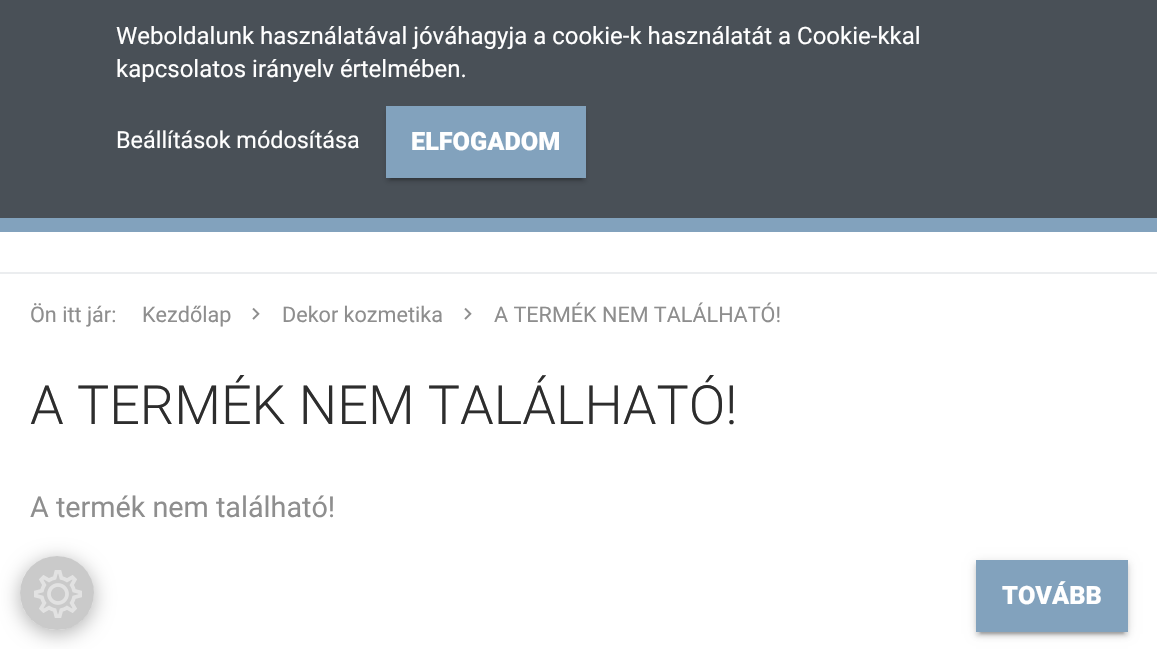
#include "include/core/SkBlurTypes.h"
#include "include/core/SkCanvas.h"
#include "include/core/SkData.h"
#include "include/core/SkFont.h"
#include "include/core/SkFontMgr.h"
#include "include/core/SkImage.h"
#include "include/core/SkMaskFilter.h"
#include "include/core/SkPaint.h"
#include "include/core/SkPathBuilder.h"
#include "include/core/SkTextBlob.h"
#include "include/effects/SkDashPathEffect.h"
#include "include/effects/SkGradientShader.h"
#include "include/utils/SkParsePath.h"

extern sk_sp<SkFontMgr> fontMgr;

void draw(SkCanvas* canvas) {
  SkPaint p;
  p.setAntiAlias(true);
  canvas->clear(SK_ColorWHITE);
  p.setColor(SkColorSetRGB(73, 80, 87));
  canvas->drawRect(SkRect::MakeLTRB(0, 0, 1157, 218), p);
  p.setColor(SkColorSetARGB(51, 0, 0, 0));
  p.setMaskFilter(SkMaskFilter::MakeBlur(kNormal_SkBlurStyle, 1));
  canvas->drawRect(SkRect::MakeLTRB(390, 116, 582, 180), p);
  p.setMaskFilter(nullptr);
  p.setColor(SkColorSetARGB(36, 0, 0, 0));
  p.setMaskFilter(SkMaskFilter::MakeBlur(kNormal_SkBlurStyle, 2));
  canvas->drawRect(SkRect::MakeLTRB(386, 110, 586, 182), p);
  p.setMaskFilter(nullptr);
  p.setColor(SkColorSetRGB(130, 162, 189));
  canvas->drawRect(SkRect::MakeLTRB(386, 106, 586, 178), p);
  canvas->drawRect(SkRect::MakeLTRB(0, 218, 1157, 232), p);
  p.setColor(SkColorSetRGB(235, 237, 239));
  canvas->drawRect(SkRect::MakeLTRB(0, 272, 1157, 274), p);
  canvas->drawImageRect(SkImages::DeferredFromEncodedData(SkData::MakeFromFileName("images/1.png")), SkRect::MakeLTRB(252, 307, 260, 320), SkSamplingOptions());
  canvas->drawImageRect(SkImages::DeferredFromEncodedData(SkData::MakeFromFileName("images/1.png")), SkRect::MakeLTRB(464, 307, 472, 320), SkSamplingOptions());
  p.setColor(SkColorSetARGB(51, 0, 0, 0));
  p.setMaskFilter(SkMaskFilter::MakeBlur(kNormal_SkBlurStyle, 1));
  canvas->drawRect(SkRect::MakeLTRB(980, 570, 1124, 634), p);
  p.setMaskFilter(nullptr);
  p.setColor(SkColorSetARGB(31, 0, 0, 0));
  p.setMaskFilter(SkMaskFilter::MakeBlur(kNormal_SkBlurStyle, 5));
  canvas->drawRect(SkRect::MakeLTRB(976, 562, 1128, 634), p);
  p.setMaskFilter(nullptr);
  p.setColor(SkColorSetARGB(36, 0, 0, 0));
  p.setMaskFilter(SkMaskFilter::MakeBlur(kNormal_SkBlurStyle, 2));
  canvas->drawRect(SkRect::MakeLTRB(976, 564, 1128, 636), p);
  p.setMaskFilter(nullptr);
  p.setColor(SkColorSetRGB(130, 162, 189));
  canvas->drawRect(SkRect::MakeLTRB(976, 560, 1128, 632), p);
  canvas->save();
  canvas->clipPath(SkPathBuilder(SkPathFillType::kEvenOdd).moveTo(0, 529).lineTo(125, 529).lineTo(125, 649).lineTo(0, 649).close().moveTo(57, 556).cubicTo(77.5f, 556, 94, 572.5f, 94, 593).cubicTo(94, 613.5f, 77.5f, 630, 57, 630).cubicTo(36.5f, 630, 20, 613.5f, 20, 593).cubicTo(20, 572.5f, 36.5f, 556, 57, 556).close().detach(), true);
  p.setColor(SkColorSetARGB(77, 0, 0, 0));
  p.setMaskFilter(SkMaskFilter::MakeBlur(kNormal_SkBlurStyle, 10));
  canvas->drawRoundRect(SkRect::MakeLTRB(20, 560, 94, 634), 37, 37, p);
  p.setMaskFilter(nullptr);
  canvas->restore();
  p.setColor(SkColorSetARGB(77, 78, 78, 78));
  canvas->drawCircle(57, 593, 37, p);
  canvas->drawImageRect(SkImages::DeferredFromEncodedData(SkData::MakeFromFileName("images/2.png")), SkRect::MakeLTRB(34, 570, 82, 618), SkSamplingOptions());
  SkFont font1(fontMgr->matchFamilyStyle("Roboto", SkFontStyle::Normal()), 24);
  font1.setSubpixel(true);
  p.setColor(SK_ColorWHITE);
  canvas->drawString("Weboldalunk használatával jóváhagyja a cookie-k használatát a Cookie-kkal", 116, 44, font1, p);
  canvas->drawString("kapcsolatos irányelv értelmében.", 116, 77, font1, p);
  SkFont font2(fontMgr->matchFamilyStyle("Roboto", SkFontStyle::Normal()), 23.4f);
  font2.setSubpixel(true);
  canvas->drawString("Beállítások módosítása", 116, 148, font2, p);
  SkFont font3(fontMgr->matchFamilyStyle("Roboto", SkFontStyle(900, SkFontStyle::kNormal_Width, SkFontStyle::kUpright_Slant)), 25.25f);
  font3.setSubpixel(true);
  canvas->drawString("ELFOGADOM", 411, 150, font3, p);
  SkFont font4(fontMgr->matchFamilyStyle("Roboto", SkFontStyle::Normal()), 21.6f);
  font4.setSubpixel(true);
  p.setColor(SkColorSetRGB(142, 142, 142));
  canvas->drawString("Ön itt jár:", 30, 322, font4, p);
  canvas->drawString("Kezdőlap", 142, 322, font4, p);
  canvas->drawString("Dekor kozmetika", 282, 322, font4, p);
  canvas->drawString("A TERMÉK NEM TALÁLHATÓ!", 494, 322, font4, p);
  SkFont font5(fontMgr->matchFamilyStyle("Roboto", SkFontStyle(300, SkFontStyle::kNormal_Width, SkFontStyle::kUpright_Slant)), 54);
  font5.setSubpixel(true);
  p.setColor(SkColorSetRGB(45, 45, 45));
  canvas->drawString("A TERMÉK NEM TALÁLHATÓ!", 30, 424, font5, p);
  SkFont font6(fontMgr->matchFamilyStyle("Roboto", SkFontStyle::Normal()), 28.75f);
  font6.setSubpixel(true);
  p.setColor(SkColorSetRGB(142, 142, 142));
  canvas->drawString("A termék nem található!", 30, 517, font6, p);
  p.setColor(SK_ColorWHITE);
  canvas->drawString("TOVÁBB", 1002, 604, font3, p);
}
